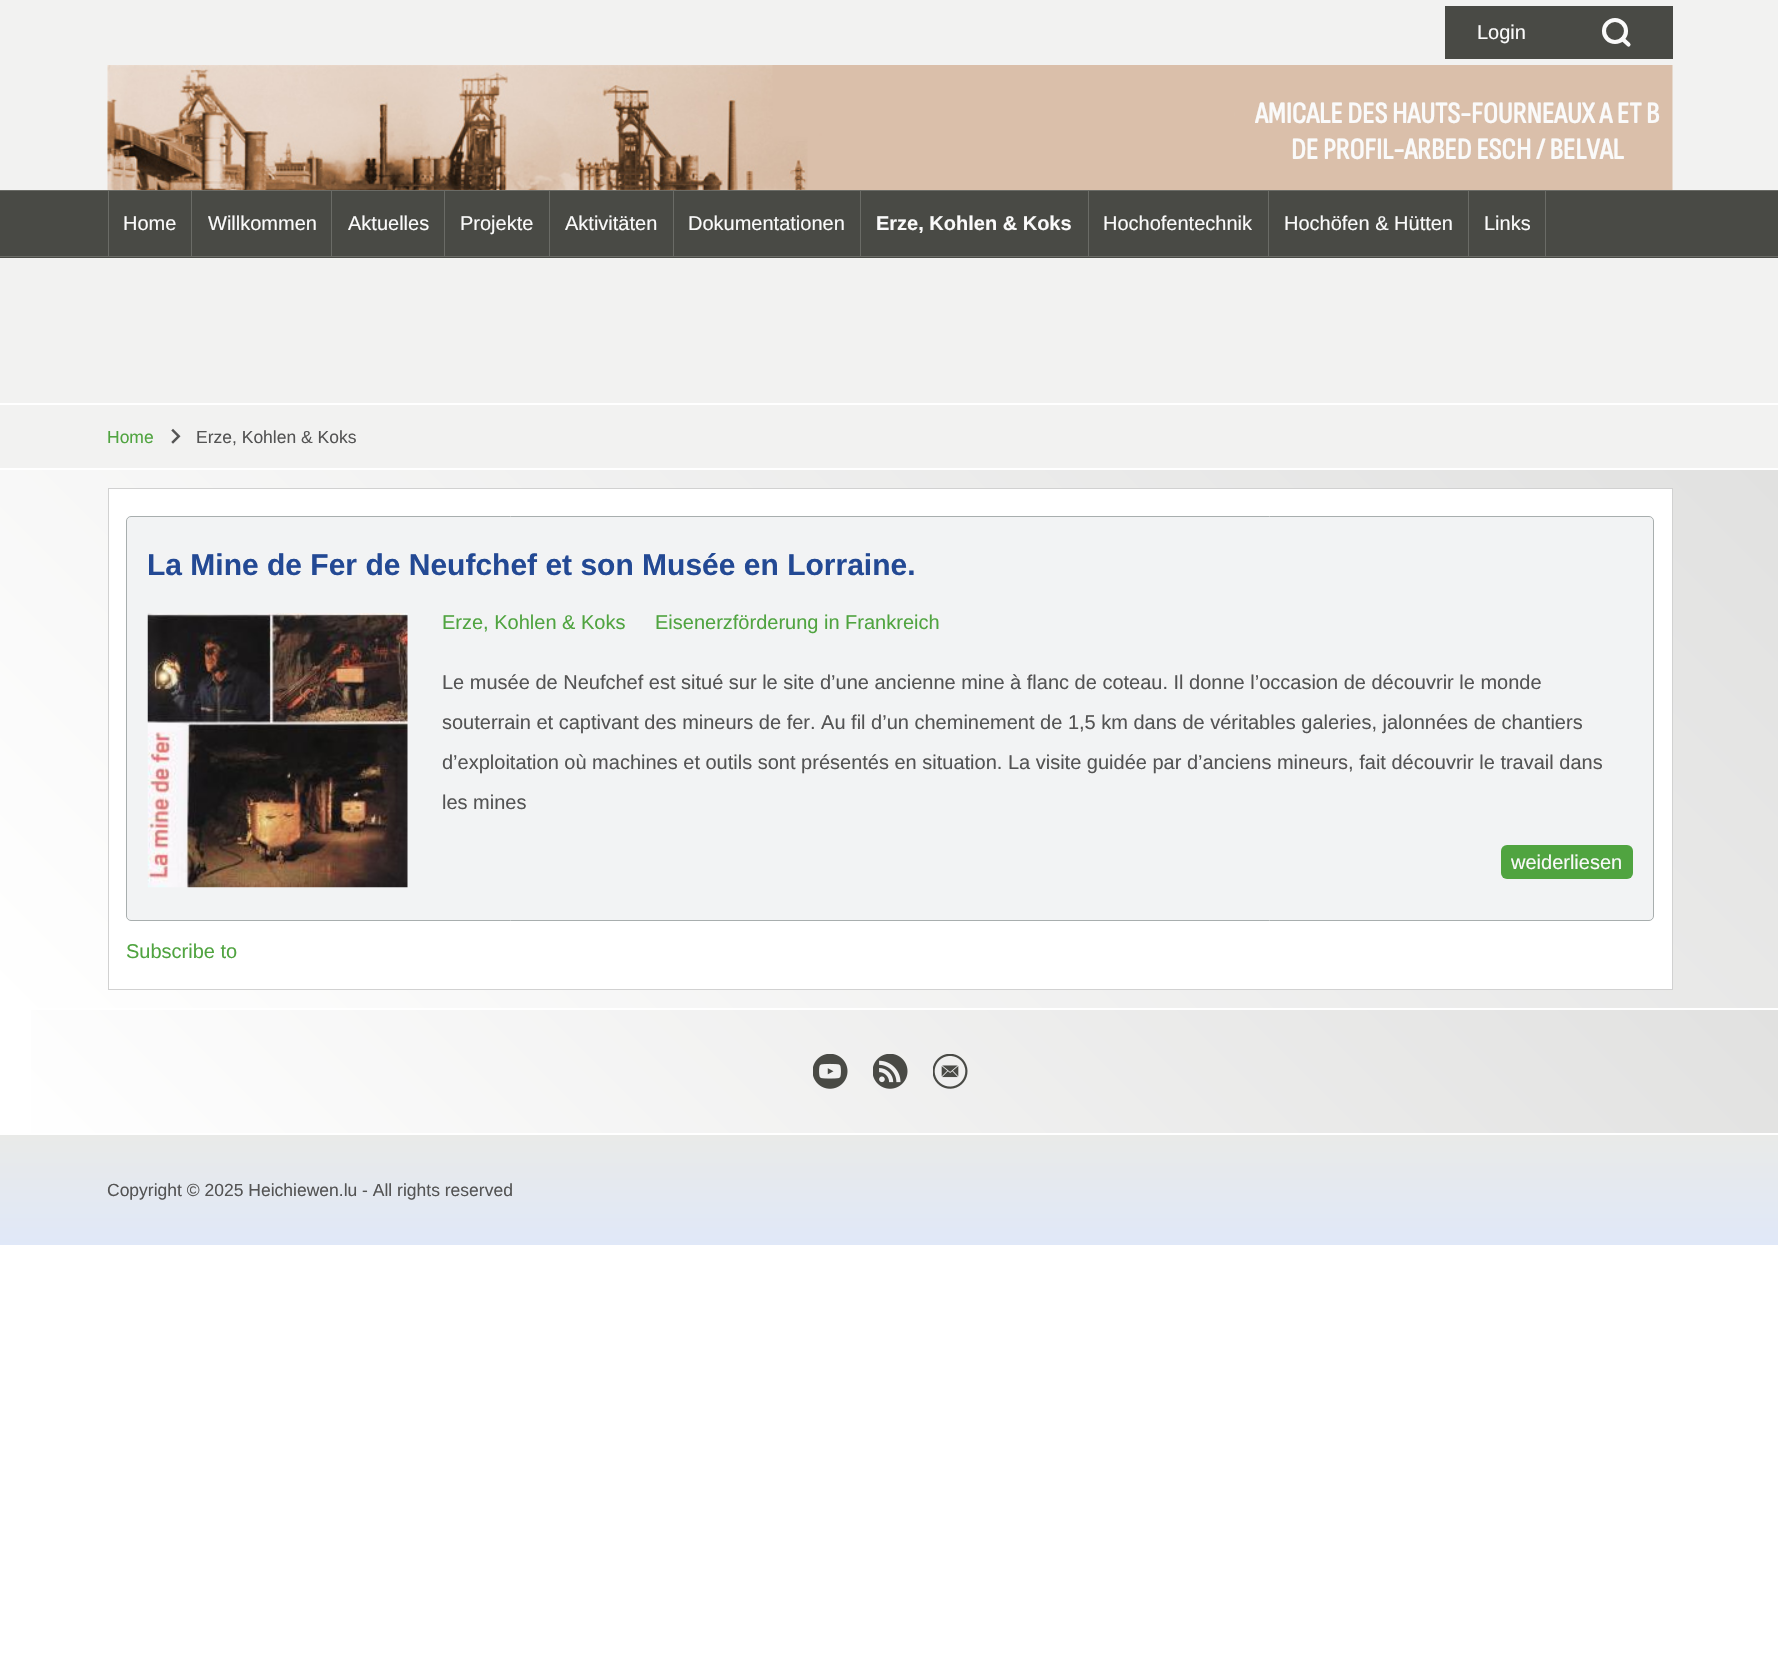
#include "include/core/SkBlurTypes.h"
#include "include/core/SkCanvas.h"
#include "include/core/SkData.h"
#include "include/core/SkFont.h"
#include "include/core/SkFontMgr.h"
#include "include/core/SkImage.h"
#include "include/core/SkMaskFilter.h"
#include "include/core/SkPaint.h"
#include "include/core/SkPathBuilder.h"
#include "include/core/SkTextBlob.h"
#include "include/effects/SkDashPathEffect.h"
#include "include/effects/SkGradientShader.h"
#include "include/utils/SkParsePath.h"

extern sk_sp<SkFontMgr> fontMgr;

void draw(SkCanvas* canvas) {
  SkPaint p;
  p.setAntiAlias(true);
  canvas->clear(SK_ColorWHITE);
  p.setColor(SkColorSetRGB(242, 242, 241));
  canvas->drawRect(SkRect::MakeLTRB(0, 0, 1778, 403), p);
  p.setColor(SkColorSetRGB(73, 74, 69));
  canvas->drawRect(SkRect::MakeLTRB(1445, 6, 1673, 59), p);
  p.setStyle(SkPaint::kStroke_Style);
  p.setStrokeWidth(4.1f);
  p.setColor(SkColorSetRGB(250, 250, 250));
  canvas->drawCircle(1615, 31, 11, p);
  p.setStrokeCap(SkPaint::kRound_Cap);
  p.setStrokeJoin(SkPaint::kRound_Join);
  canvas->drawPath(SkPathBuilder().moveTo(1628.5f, 44.5f).lineTo(1622.5f, 39).detach(), p);
  canvas->drawImageRect(SkImages::DeferredFromEncodedData(SkData::MakeFromFileName("images/1.png")), SkRect::MakeLTRB(107, 65, 1673, 190), SkSamplingOptions());
  p.setStyle(SkPaint::kFill_Style);
  p.setColor(SkColorSetRGB(73, 74, 69));
  canvas->drawRect(SkRect::MakeLTRB(0, 191, 1778, 258), p);
  p.setColor(SkColorSetRGB(106, 107, 102));
  canvas->drawRect(SkRect::MakeLTRB(0, 190, 1778, 191), p);
  canvas->drawRect(SkRect::MakeLTRB(0, 256, 1778, 257), p);
  canvas->drawRect(SkRect::MakeLTRB(191, 191, 192, 256), p);
  canvas->drawRect(SkRect::MakeLTRB(108, 191, 109, 256), p);
  canvas->drawRect(SkRect::MakeLTRB(331, 191, 332, 256), p);
  canvas->drawRect(SkRect::MakeLTRB(444, 191, 445, 256), p);
  canvas->drawRect(SkRect::MakeLTRB(549, 191, 550, 256), p);
  canvas->drawRect(SkRect::MakeLTRB(673, 191, 674, 256), p);
  canvas->drawRect(SkRect::MakeLTRB(860, 191, 861, 256), p);
  canvas->drawRect(SkRect::MakeLTRB(1088, 191, 1089, 256), p);
  canvas->drawRect(SkRect::MakeLTRB(1268, 191, 1269, 256), p);
  canvas->drawRect(SkRect::MakeLTRB(1468, 191, 1469, 256), p);
  canvas->drawRect(SkRect::MakeLTRB(1545, 191, 1546, 256), p);
  p.setColor(SkColorSetRGB(242, 242, 241));
  canvas->drawRect(SkRect::MakeLTRB(0, 405, 1778, 468), p);
  canvas->drawImageRect(SkImages::DeferredFromEncodedData(SkData::MakeFromFileName("images/2.png")), SkRect::MakeLTRB(171, 428, 181, 444), SkSamplingOptions());
  {
    const SkColor colors[] = {SK_ColorWHITE, SkColorSetRGB(225, 225, 224)};
    const float stops[] = {0, 1};
    const SkPoint ends[] = {{310, 1318}, {1468, 160}};
    p.setShader(SkGradientShader::MakeLinear(ends, colors, stops, 2, SkTileMode::kClamp));
    p.setAlpha(255);
  }
  canvas->drawRect(SkRect::MakeLTRB(0, 470, 1778, 1008), p);
  p.setShader(nullptr);
  p.setColor(SK_ColorWHITE);
  canvas->drawRect(SkRect::MakeLTRB(108.5f, 488.5f, 1672.5f, 989.5f), p);
  p.setStyle(SkPaint::kStroke_Style);
  p.setStrokeWidth(1);
  p.setStrokeCap(SkPaint::kButt_Cap);
  p.setStrokeJoin(SkPaint::kMiter_Join);
  p.setColor(SkColorSetRGB(209, 209, 209));
  canvas->drawRect(SkRect::MakeLTRB(108.5f, 488.5f, 1672.5f, 989.5f), p);
  p.setStyle(SkPaint::kFill_Style);
  p.setColor(SkColorSetRGB(242, 243, 244));
  canvas->drawRoundRect(SkRect::MakeLTRB(126.5f, 516.5f, 1653.5f, 920.5f), 4.5f, 4.5f, p);
  p.setStyle(SkPaint::kStroke_Style);
  p.setColor(SkColorSetRGB(168, 174, 174));
  canvas->drawRoundRect(SkRect::MakeLTRB(126.5f, 516.5f, 1653.5f, 920.5f), 4.5f, 4.5f, p);
  canvas->drawImageRect(SkImages::DeferredFromEncodedData(SkData::MakeFromFileName("images/3.png")), SkRect::MakeLTRB(147, 613, 408, 888), SkSamplingOptions());
  p.setStyle(SkPaint::kFill_Style);
  p.setColor(SkColorSetRGB(80, 164, 64));
  canvas->drawRoundRect(SkRect::MakeLTRB(1501, 845, 1633, 879), 6, 6, p);
  {
    const SkColor colors[] = {SK_ColorWHITE, SkColorSetRGB(225, 225, 224)};
    const float stops[] = {0, 1};
    const SkPoint ends[] = {{414, 1547}, {1365, 596}};
    p.setShader(SkGradientShader::MakeLinear(ends, colors, stops, 2, SkTileMode::kClamp));
    p.setAlpha(255);
  }
  canvas->drawRect(SkRect::MakeLTRB(31, 1010, 1778, 1133), p);
  canvas->drawImageRect(SkImages::DeferredFromEncodedData(SkData::MakeFromFileName("images/4.png")), SkRect::MakeLTRB(813, 1054, 848, 1089), SkSamplingOptions());
  canvas->drawImageRect(SkImages::DeferredFromEncodedData(SkData::MakeFromFileName("images/5.png")), SkRect::MakeLTRB(873, 1054, 908, 1089), SkSamplingOptions());
  canvas->drawImageRect(SkImages::DeferredFromEncodedData(SkData::MakeFromFileName("images/6.png")), SkRect::MakeLTRB(933, 1054, 968, 1089), SkSamplingOptions());
  {
    const SkColor colors[] = {SkColorSetRGB(233, 234, 232), SkColorSetRGB(224, 232, 248)};
    const float stops[] = {0, 1};
    const SkPoint ends[] = {{889, 1135}, {889, 1245}};
    p.setShader(SkGradientShader::MakeLinear(ends, colors, stops, 2, SkTileMode::kClamp));
    p.setAlpha(255);
  }
  canvas->drawRect(SkRect::MakeLTRB(0, 1135, 1778, 1245), p);
  SkFont font1(fontMgr->matchFamilyStyle("Liberation Sans", SkFontStyle::Normal()), 20);
  font1.setSubpixel(true);
  p.setShader(nullptr);
  p.setColor(SkColorSetRGB(250, 250, 250));
  canvas->drawString("Login", 1477, 39, font1, p);
  SkFont font2(fontMgr->matchFamilyStyle("Sofia Sans Condensed", SkFontStyle::Bold()), 30);
  font2.setSubpixel(true);
  canvas->drawString("AMICALE DES HAUTS-FOURNEAUX A ET B", 1255, 123, font2, p);
  canvas->drawString("DE PROFIL-ARBED ESCH / BELVAL", 1291, 159, font2, p);
  canvas->drawString("Home", 123, 230, font1, p);
  canvas->drawString("Willkommen", 208, 230, font1, p);
  canvas->drawString("Aktuelles", 348, 230, font1, p);
  canvas->drawString("Projekte", 460, 230, font1, p);
  canvas->drawString("Aktivitäten", 565, 230, font1, p);
  canvas->drawString("Dokumentationen", 688, 230, font1, p);
  SkFont font3(fontMgr->matchFamilyStyle("Liberation Sans", SkFontStyle::Bold()), 20);
  font3.setSubpixel(true);
  canvas->drawString("Erze, Kohlen & Koks", 876, 230, font3, p);
  canvas->drawString("Hochofentechnik", 1103, 230, font1, p);
  canvas->drawString("Hochöfen & Hütten", 1284, 230, font1, p);
  canvas->drawString("Links", 1484, 230, font1, p);
  SkFont font4(fontMgr->matchFamilyStyle("Liberation Sans", SkFontStyle::Normal()), 17.5f);
  font4.setSubpixel(true);
  p.setColor(SkColorSetRGB(80, 164, 64));
  canvas->drawString("Home", 107, 443, font4, p);
  p.setColor(SkColorSetRGB(84, 84, 84));
  canvas->drawString("Erze, Kohlen & Koks", 196, 443, font4, p);
  SkFont font5(fontMgr->matchFamilyStyle("Liberation Sans", SkFontStyle::Bold()), 30);
  font5.setSubpixel(true);
  p.setColor(SkColorSetRGB(35, 73, 148));
  canvas->drawString("La Mine de Fer de Neufchef et son Musée en Lorraine.", 147, 575, font5, p);
  p.setColor(SkColorSetRGB(80, 164, 64));
  canvas->drawString("Erze, Kohlen & Koks", 442, 629, font1, p);
  canvas->drawString("Eisenerzförderung in Frankreich", 655, 629, font1, p);
  p.setColor(SkColorSetRGB(84, 84, 84));
  canvas->drawString("Le musée de Neufchef est situé sur le site d’une ancienne mine à flanc de coteau. Il donne l’occasion de découvrir le monde", 442, 689, font1, p);
  canvas->drawString("souterrain et captivant des mineurs de fer. Au fil d’un cheminement de 1,5 km dans de véritables galeries, jalonnées de chantiers", 442, 729, font1, p);
  canvas->drawString("d’exploitation où machines et outils sont présentés en situation. La visite guidée par d’anciens mineurs, fait découvrir le travail dans", 442, 769, font1, p);
  canvas->drawString("les mines", 442, 809, font1, p);
  p.setColor(SkColorSetRGB(250, 250, 250));
  canvas->drawString("weiderliesen", 1511, 869, font1, p);
  p.setColor(SkColorSetRGB(80, 164, 64));
  canvas->drawString("Subscribe to", 126, 958, font1, p);
  p.setColor(SkColorSetRGB(84, 84, 84));
  canvas->drawString("Copyright © 2025 Heichiewen.lu - All rights reserved", 107, 1196, font4, p);
}
